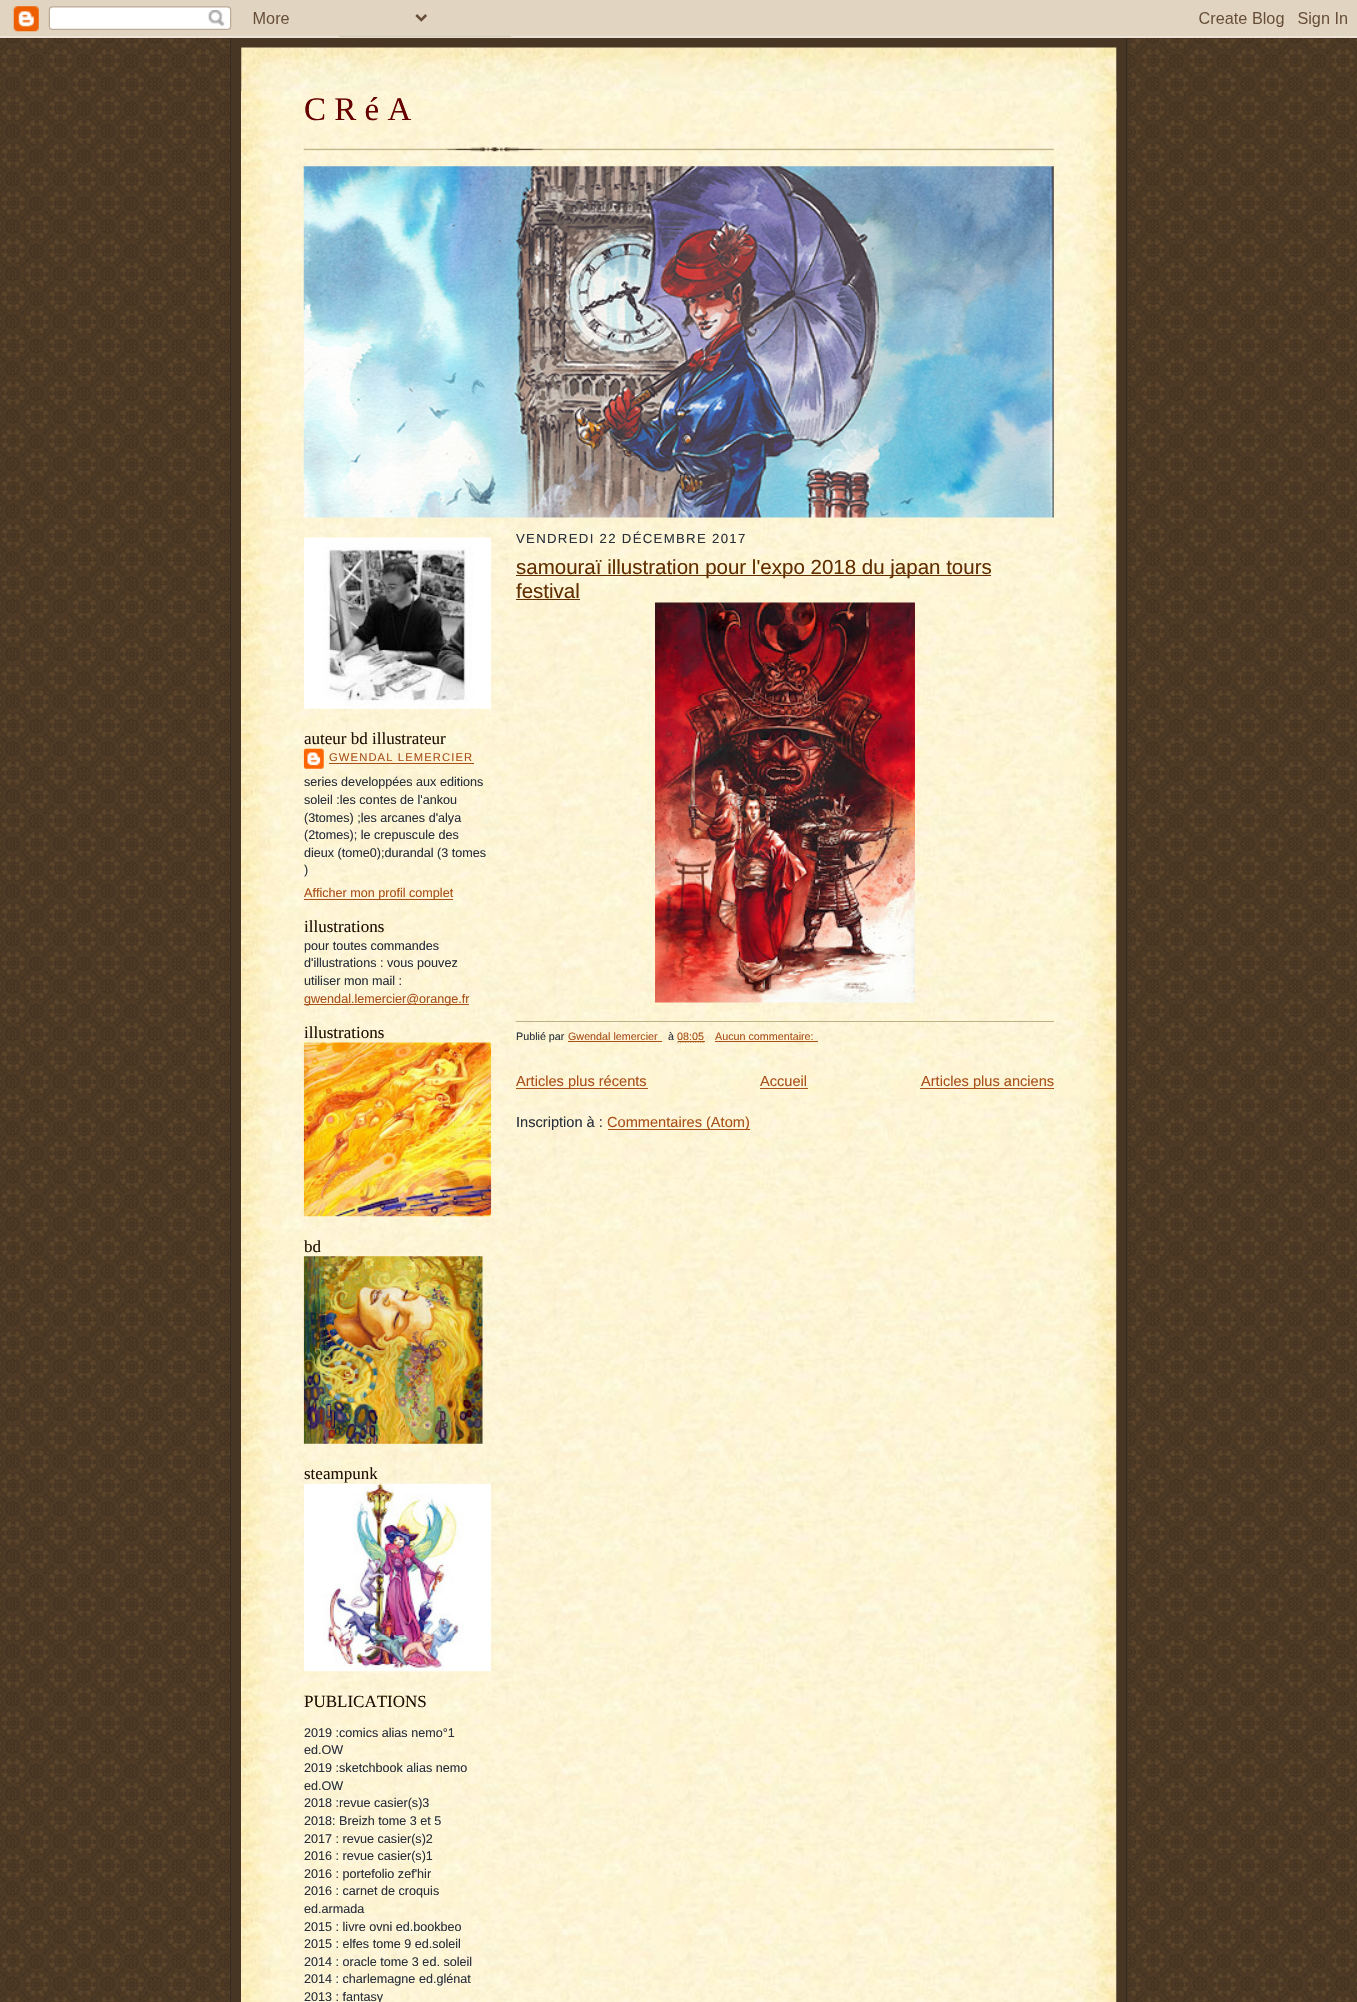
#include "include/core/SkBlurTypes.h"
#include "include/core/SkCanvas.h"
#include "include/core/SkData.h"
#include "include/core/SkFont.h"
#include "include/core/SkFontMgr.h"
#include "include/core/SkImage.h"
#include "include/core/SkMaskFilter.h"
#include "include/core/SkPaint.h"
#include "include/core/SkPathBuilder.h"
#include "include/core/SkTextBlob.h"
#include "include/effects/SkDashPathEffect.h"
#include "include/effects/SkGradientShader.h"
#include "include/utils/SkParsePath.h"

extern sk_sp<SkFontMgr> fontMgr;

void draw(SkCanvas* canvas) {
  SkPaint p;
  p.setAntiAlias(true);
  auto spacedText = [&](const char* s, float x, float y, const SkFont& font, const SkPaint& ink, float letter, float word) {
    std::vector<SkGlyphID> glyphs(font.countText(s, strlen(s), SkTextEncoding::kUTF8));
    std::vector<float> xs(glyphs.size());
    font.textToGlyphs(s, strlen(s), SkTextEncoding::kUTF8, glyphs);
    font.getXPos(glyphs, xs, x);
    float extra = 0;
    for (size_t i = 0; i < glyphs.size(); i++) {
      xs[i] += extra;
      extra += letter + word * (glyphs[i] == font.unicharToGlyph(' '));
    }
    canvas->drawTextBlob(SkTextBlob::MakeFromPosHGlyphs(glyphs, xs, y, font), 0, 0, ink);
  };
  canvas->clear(SK_ColorWHITE);
  canvas->drawImageRect(SkImages::DeferredFromEncodedData(SkData::MakeFromFileName("images/1.png")), SkRect::MakeLTRB(0, 36, 1357, 2002), SkSamplingOptions());
  canvas->drawImageRect(SkImages::DeferredFromEncodedData(SkData::MakeFromFileName("images/2.png")), SkRect::MakeLTRB(0, 0, 1357, 38), SkSamplingOptions());
  p.setColor(SkColorSetRGB(71, 54, 36));
  canvas->drawRect(SkRect::MakeLTRB(231, 38, 1128, 2002), p);
  p.setColor(SkColorSetRGB(51, 42, 36));
  canvas->drawRect(SkRect::MakeLTRB(1126, 38, 1127, 2002), p);
  canvas->drawRect(SkRect::MakeLTRB(230, 38, 231, 2002), p);
  canvas->drawImageRect(SkImages::DeferredFromEncodedData(SkData::MakeFromFileName("images/3.png")), SkRect::MakeLTRB(241, 47, 1117, 109), SkSamplingOptions());
  p.setColor(SkColorSetRGB(255, 243, 219));
  canvas->drawRect(SkRect::MakeLTRB(241, 91, 1116, 2002), p);
  canvas->drawImageRect(SkImages::DeferredFromEncodedData(SkData::MakeFromFileName("images/4.png")), SkRect::MakeLTRB(241, 91, 1117, 2002), SkSamplingOptions());
  canvas->drawImageRect(SkImages::DeferredFromEncodedData(SkData::MakeFromFileName("images/5.png")), SkRect::MakeLTRB(303, 147, 1054, 152), SkSamplingOptions());
  canvas->drawImageRect(SkImages::DeferredFromEncodedData(SkData::MakeFromFileName("images/6.png")), SkRect::MakeLTRB(303, 166, 1054, 518), SkSamplingOptions());
  canvas->drawImageRect(SkImages::DeferredFromEncodedData(SkData::MakeFromFileName("images/7.png")), SkRect::MakeLTRB(304, 537, 491, 709), SkSamplingOptions());
  canvas->drawImageRect(SkImages::DeferredFromEncodedData(SkData::MakeFromFileName("images/8.png")), SkRect::MakeLTRB(303, 748, 324, 769), SkSamplingOptions());
  p.setColor(SkColorSetRGB(169, 80, 27));
  canvas->drawRect(SkRect::MakeLTRB(329, 763, 474, 764), p);
  canvas->drawRect(SkRect::MakeLTRB(304, 899, 453, 900), p);
  canvas->drawRect(SkRect::MakeLTRB(304, 1004, 469, 1005), p);
  canvas->drawImageRect(SkImages::DeferredFromEncodedData(SkData::MakeFromFileName("images/9.png")), SkRect::MakeLTRB(303, 1042, 492, 1217), SkSamplingOptions());
  canvas->drawImageRect(SkImages::DeferredFromEncodedData(SkData::MakeFromFileName("images/10.png")), SkRect::MakeLTRB(303, 1256, 483, 1444), SkSamplingOptions());
  canvas->drawImageRect(SkImages::DeferredFromEncodedData(SkData::MakeFromFileName("images/11.png")), SkRect::MakeLTRB(304, 1483, 491, 1672), SkSamplingOptions());
  p.setColor(SkColorSetRGB(97, 46, 0));
  canvas->drawRect(SkRect::MakeLTRB(516, 575, 991, 576), p);
  canvas->drawRect(SkRect::MakeLTRB(516, 599, 580, 600), p);
  canvas->drawImageRect(SkImages::DeferredFromEncodedData(SkData::MakeFromFileName("images/12.png")), SkRect::MakeLTRB(655, 602, 915, 1003), SkSamplingOptions());
  p.setColor(SkColorSetRGB(191, 177, 134));
  canvas->drawRect(SkRect::MakeLTRB(516, 1021, 1054, 1022), p);
  p.setColor(SkColorSetRGB(169, 80, 27));
  canvas->drawRect(SkRect::MakeLTRB(568, 1041, 662, 1042), p);
  p.setStyle(SkPaint::kStroke_Style);
  p.setStrokeWidth(1.2f);
  p.setPathEffect(SkDashPathEffect::Make({{1.25f, 1.25f}}, 0));
  canvas->drawPath(SkPathBuilder().moveTo(677.5f, 1042).lineTo(704.5f, 1042).detach(), p);
  p.setPathEffect(nullptr);
  p.setStyle(SkPaint::kFill_Style);
  canvas->drawRect(SkRect::MakeLTRB(678, 1041, 705, 1042), p);
  canvas->drawRect(SkRect::MakeLTRB(715, 1041, 818, 1042), p);
  canvas->drawRect(SkRect::MakeLTRB(516, 1088, 648, 1089), p);
  canvas->drawRect(SkRect::MakeLTRB(760, 1088, 808, 1089), p);
  canvas->drawRect(SkRect::MakeLTRB(920, 1088, 1054, 1089), p);
  canvas->drawRect(SkRect::MakeLTRB(608, 1129, 750, 1130), p);
  SkFont font1(fontMgr->matchFamilyStyle("Liberation Serif", SkFontStyle::Normal()), 33);
  font1.setSubpixel(true);
  p.setColor(SkColorSetRGB(102, 0, 0));
  canvas->drawString("C R é A", 304, 120, font1, p);
  SkFont font2(fontMgr->matchFamilyStyle("Liberation Serif", SkFontStyle::Normal()), 17);
  font2.setSubpixel(true);
  p.setColor(SkColorSetRGB(33, 17, 4));
  canvas->drawString("auteur bd illustrateur", 304, 744, font2, p);
  SkFont font3(fontMgr->matchFamilyStyle("Liberation Sans", SkFontStyle::Normal()), 11.25f);
  font3.setSubpixel(true);
  p.setColor(SkColorSetRGB(169, 80, 27));
  spacedText("GWENDAL LEMERCIER", 329, 761, font3, p, 1.1f, 0);
  SkFont font4(fontMgr->matchFamilyStyle("Liberation Sans", SkFontStyle::Normal()), 12.6f);
  font4.setSubpixel(true);
  p.setColor(SkColorSetRGB(41, 48, 59));
  canvas->drawString("series developpées aux editions", 304, 786, font4, p);
  canvas->drawString("soleil :les contes de l'ankou", 304, 804, font4, p);
  canvas->drawString("(3tomes) ;les arcanes d'alya", 304, 822, font4, p);
  canvas->drawString("(2tomes); le crepuscule des", 304, 839, font4, p);
  canvas->drawString("dieux (tome0);durandal (3 tomes", 304, 857, font4, p);
  canvas->drawString(")", 304, 874, font4, p);
  p.setColor(SkColorSetRGB(169, 80, 27));
  canvas->drawString("Afficher mon profil complet", 304, 897, font4, p);
  p.setColor(SkColorSetRGB(33, 17, 4));
  canvas->drawString("illustrations", 304, 932, font2, p);
  p.setColor(SkColorSetRGB(41, 48, 59));
  canvas->drawString("pour toutes commandes", 304, 950, font4, p);
  canvas->drawString("d'illustrations : vous pouvez", 304, 967, font4, p);
  canvas->drawString("utiliser mon mail :", 304, 985, font4, p);
  p.setColor(SkColorSetRGB(169, 80, 27));
  canvas->drawString("gwendal.lemercier@orange.fr", 304, 1003, font4, p);
  p.setColor(SkColorSetRGB(33, 17, 4));
  canvas->drawString("illustrations", 304, 1038, font2, p);
  canvas->drawString("bd", 304, 1252, font2, p);
  canvas->drawString("steampunk", 304, 1479, font2, p);
  canvas->drawString("PUBLICATIONS", 304, 1707, font2, p);
  p.setColor(SkColorSetRGB(41, 48, 59));
  canvas->drawString("2019 :comics alias nemo°1", 304, 1737, font4, p);
  canvas->drawString("ed.OW", 304, 1754, font4, p);
  canvas->drawString("2019 :sketchbook alias nemo", 304, 1772, font4, p);
  canvas->drawString("ed.OW", 304, 1790, font4, p);
  canvas->drawString("2018 :revue casier(s)3", 304, 1807, font4, p);
  canvas->drawString("2018: Breizh tome 3 et 5", 304, 1825, font4, p);
  canvas->drawString("2017 : revue casier(s)2", 304, 1843, font4, p);
  canvas->drawString("2016 : revue casier(s)1", 304, 1860, font4, p);
  canvas->drawString("2016 : portefolio zef'hir", 304, 1878, font4, p);
  canvas->drawString("2016 : carnet de croquis", 304, 1895, font4, p);
  canvas->drawString("ed.armada", 304, 1913, font4, p);
  canvas->drawString("2015 : livre ovni ed.bookbeo", 304, 1931, font4, p);
  canvas->drawString("2015 : elfes tome 9 ed.soleil", 304, 1948, font4, p);
  canvas->drawString("2014 : oracle tome 3 ed. soleil", 304, 1966, font4, p);
  canvas->drawString("2014 : charlemagne ed.glénat", 304, 1983, font4, p);
  canvas->drawString("2013 : fantasy", 304, 2001, font4, p);
  SkFont font5(fontMgr->matchFamilyStyle("Liberation Sans", SkFontStyle::Normal()), 13.2f);
  font5.setSubpixel(true);
  spacedText("VENDREDI 22 DÉCEMBRE 2017", 516, 543, font5, p, 1.3f, 0);
  SkFont font6(fontMgr->matchFamilyStyle("Liberation Sans", SkFontStyle::Normal()), 20.5f);
  font6.setSubpixel(true);
  p.setColor(SkColorSetRGB(97, 46, 0));
  canvas->drawString("samouraï illustration pour l'expo 2018 du japan tours", 516, 574, font6, p);
  canvas->drawString("festival", 516, 598, font6, p);
  SkFont font7(fontMgr->matchFamilyStyle("Liberation Sans", SkFontStyle::Normal()), 10.75f);
  font7.setSubpixel(true);
  p.setColor(SkColorSetRGB(41, 48, 59));
  canvas->drawString("Publié par", 516, 1040, font7, p);
  p.setColor(SkColorSetRGB(169, 80, 27));
  canvas->drawString("Gwendal lemercier", 568, 1040, font7, p);
  p.setColor(SkColorSetRGB(41, 48, 59));
  canvas->drawString("à", 668, 1040, font7, p);
  p.setColor(SkColorSetRGB(169, 80, 27));
  canvas->drawString("08:05", 677, 1040, font7, p);
  canvas->drawString("Aucun commentaire:", 715, 1040, font7, p);
  SkFont font8(fontMgr->matchFamilyStyle("Liberation Sans", SkFontStyle::Normal()), 14.6f);
  font8.setSubpixel(true);
  canvas->drawString("Articles plus récents", 516, 1086, font8, p);
  canvas->drawString("Accueil", 760, 1086, font8, p);
  canvas->drawString("Articles plus anciens", 921, 1086, font8, p);
  p.setColor(SkColorSetRGB(41, 48, 59));
  canvas->drawString("Inscription à :", 516, 1127, font8, p);
  p.setColor(SkColorSetRGB(169, 80, 27));
  canvas->drawString("Commentaires (Atom)", 607, 1127, font8, p);
}
